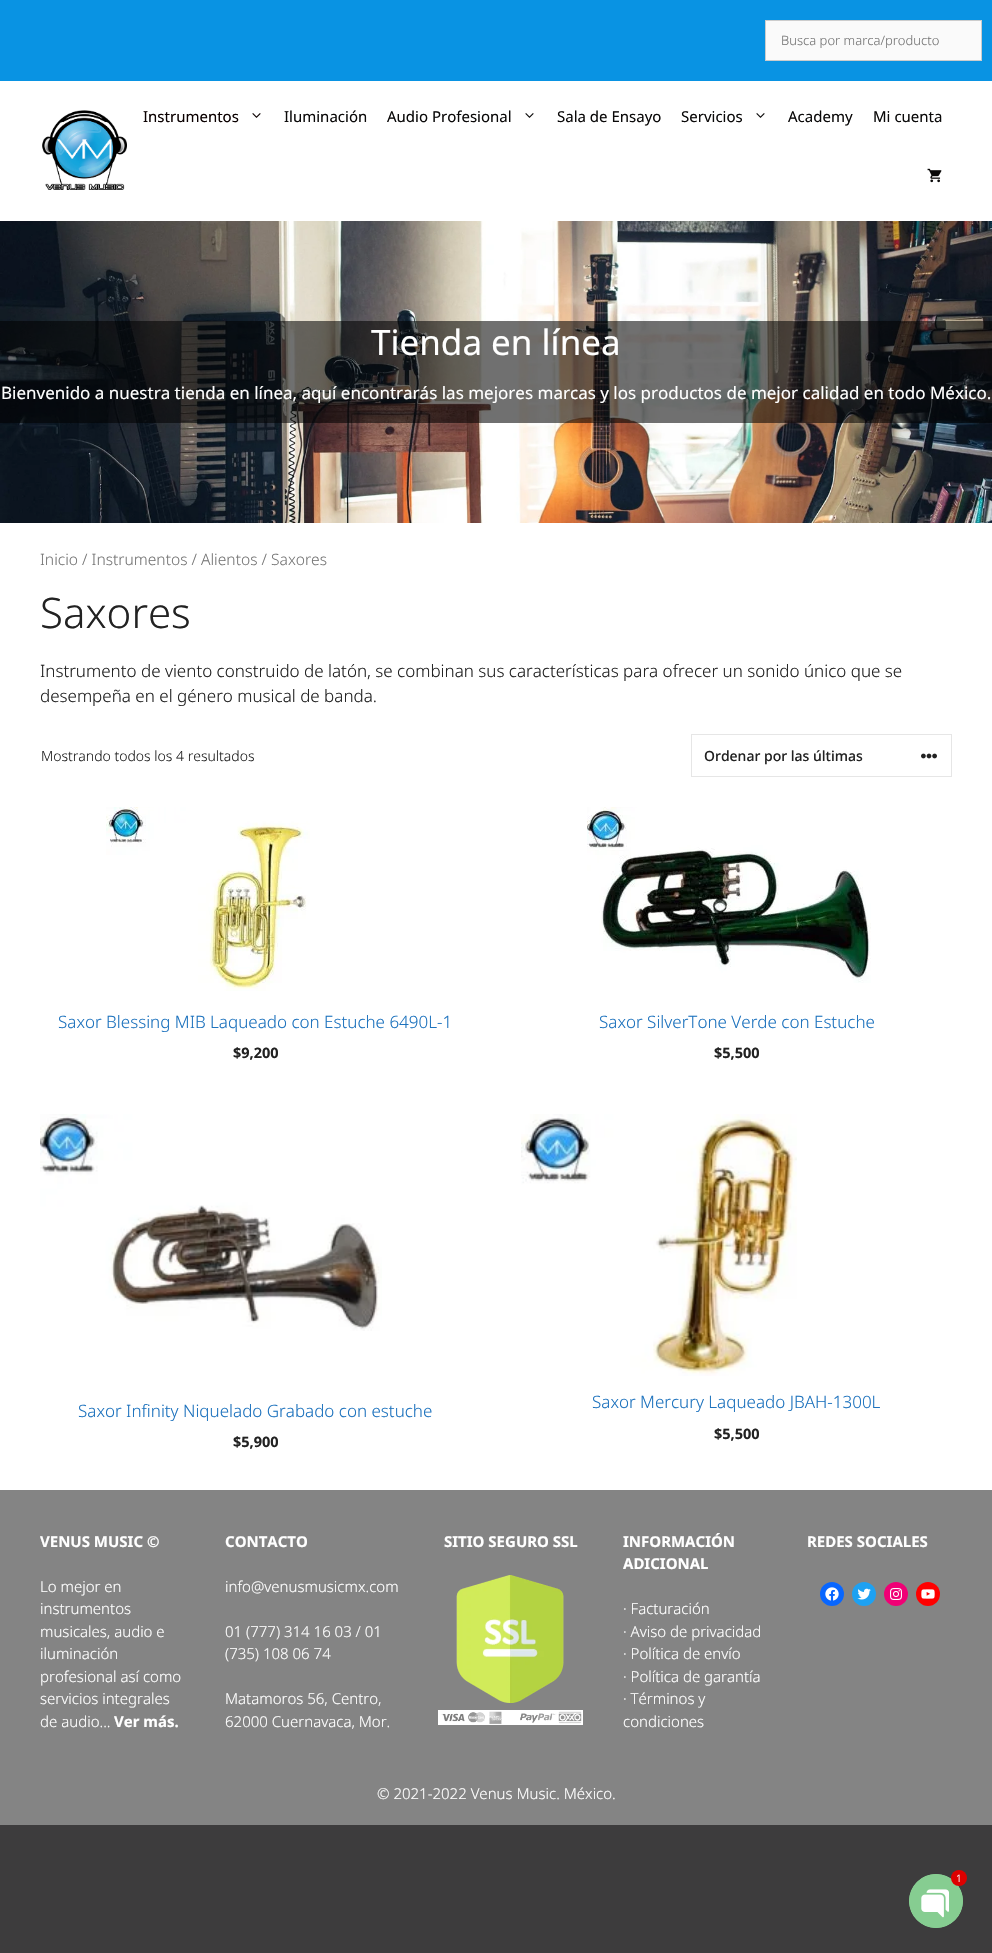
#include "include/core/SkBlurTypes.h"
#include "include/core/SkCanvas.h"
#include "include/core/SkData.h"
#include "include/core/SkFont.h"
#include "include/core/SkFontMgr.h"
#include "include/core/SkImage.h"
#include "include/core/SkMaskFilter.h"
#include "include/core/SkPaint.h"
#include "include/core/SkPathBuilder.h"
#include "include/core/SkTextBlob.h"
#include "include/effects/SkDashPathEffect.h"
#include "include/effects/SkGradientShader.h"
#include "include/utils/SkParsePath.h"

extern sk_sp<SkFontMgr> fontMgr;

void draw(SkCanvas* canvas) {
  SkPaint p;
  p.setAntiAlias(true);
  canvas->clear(SkColorSetRGB(61, 60, 61));
  p.setColor(SkColorSetRGB(9, 147, 227));
  canvas->drawRect(SkRect::MakeLTRB(0, 0, 992, 81), p);
  p.setColor(SkColorSetRGB(250, 250, 250));
  canvas->drawRect(SkRect::MakeLTRB(765.5f, 20.5f, 981.5f, 60.5f), p);
  p.setStyle(SkPaint::kStroke_Style);
  p.setStrokeWidth(1);
  p.setColor(SkColorSetRGB(204, 204, 204));
  canvas->drawRect(SkRect::MakeLTRB(765.5f, 20.5f, 981.5f, 60.5f), p);
  p.setStyle(SkPaint::kFill_Style);
  p.setColor(SK_ColorWHITE);
  canvas->drawRect(SkRect::MakeLTRB(0, 81, 992, 1490), p);
  canvas->drawImageRect(SkImages::DeferredFromEncodedData(SkData::MakeFromFileName("images/1.png")), SkRect::MakeLTRB(42, 110, 127, 190), SkSamplingOptions());
  canvas->drawImageRect(SkImages::DeferredFromEncodedData(SkData::MakeFromFileName("images/2.png")), SkRect::MakeLTRB(252, 113, 261, 118), SkSamplingOptions());
  canvas->drawImageRect(SkImages::DeferredFromEncodedData(SkData::MakeFromFileName("images/3.png")), SkRect::MakeLTRB(525, 113, 534, 118), SkSamplingOptions());
  canvas->drawImageRect(SkImages::DeferredFromEncodedData(SkData::MakeFromFileName("images/3.png")), SkRect::MakeLTRB(756, 113, 765, 118), SkSamplingOptions());
  canvas->drawImageRect(SkImages::DeferredFromEncodedData(SkData::MakeFromFileName("images/4.png")), SkRect::MakeLTRB(927, 168, 942, 183), SkSamplingOptions());
  canvas->drawImageRect(SkImages::DeferredFromEncodedData(SkData::MakeFromFileName("images/5.png")), SkRect::MakeLTRB(0, 221, 992, 523), SkSamplingOptions());
  p.setColor(SkColorSetARGB(143, 0, 0, 0));
  canvas->drawRect(SkRect::MakeLTRB(0, 321, 992, 423), p);
  p.setStyle(SkPaint::kStroke_Style);
  p.setColor(SkColorSetRGB(230, 230, 230));
  canvas->drawRect(SkRect::MakeLTRB(691.5f, 734.5f, 951.5f, 776.5f), p);
  canvas->drawImageRect(SkImages::DeferredFromEncodedData(SkData::MakeFromFileName("images/6.png")), SkRect::MakeLTRB(921, 753, 937, 759), SkSamplingOptions());
  canvas->drawImageRect(SkImages::DeferredFromEncodedData(SkData::MakeFromFileName("images/7.png")), SkRect::MakeLTRB(106, 807, 310, 991), SkSamplingOptions());
  canvas->drawImageRect(SkImages::DeferredFromEncodedData(SkData::MakeFromFileName("images/8.png")), SkRect::MakeLTRB(587, 807, 871, 983), SkSamplingOptions());
  canvas->drawImageRect(SkImages::DeferredFromEncodedData(SkData::MakeFromFileName("images/9.png")), SkRect::MakeLTRB(40, 1114, 382, 1331), SkSamplingOptions());
  canvas->drawImageRect(SkImages::DeferredFromEncodedData(SkData::MakeFromFileName("images/10.png")), SkRect::MakeLTRB(521, 1114, 797, 1376), SkSamplingOptions());
  p.setStyle(SkPaint::kFill_Style);
  p.setColor(SkColorSetRGB(132, 132, 132));
  canvas->drawRect(SkRect::MakeLTRB(0, 1490, 992, 1825), p);
  canvas->drawImageRect(SkImages::DeferredFromEncodedData(SkData::MakeFromFileName("images/11.png")), SkRect::MakeLTRB(456, 1575, 564, 1703), SkSamplingOptions());
  canvas->drawImageRect(SkImages::DeferredFromEncodedData(SkData::MakeFromFileName("images/12.png")), SkRect::MakeLTRB(438, 1710, 583, 1725), SkSamplingOptions());
  p.setColor(SkColorSetRGB(8, 102, 255));
  canvas->drawCircle(832, 1594, 12, p);
  canvas->drawImageRect(SkImages::DeferredFromEncodedData(SkData::MakeFromFileName("images/13.png")), SkRect::MakeLTRB(825, 1587, 839, 1601), SkSamplingOptions());
  p.setColor(SkColorSetRGB(29, 161, 242));
  canvas->drawCircle(864, 1594, 12, p);
  canvas->drawImageRect(SkImages::DeferredFromEncodedData(SkData::MakeFromFileName("images/14.png")), SkRect::MakeLTRB(857, 1588, 871, 1600), SkSamplingOptions());
  p.setColor(SkColorSetRGB(240, 0, 117));
  canvas->drawCircle(896, 1594, 12, p);
  canvas->drawImageRect(SkImages::DeferredFromEncodedData(SkData::MakeFromFileName("images/15.png")), SkRect::MakeLTRB(890, 1588, 902, 1600), SkSamplingOptions());
  p.setColor(SkColorSetRGB(255, 0, 0));
  canvas->drawCircle(928, 1594, 12, p);
  canvas->drawImageRect(SkImages::DeferredFromEncodedData(SkData::MakeFromFileName("images/16.png")), SkRect::MakeLTRB(921, 1589, 935, 1599), SkSamplingOptions());
  p.setColor(SkColorSetRGB(134, 205, 145));
  canvas->drawCircle(936, 1901, 27, p);
  canvas->drawImageRect(SkImages::DeferredFromEncodedData(SkData::MakeFromFileName("images/17.png")), SkRect::MakeLTRB(909, 1874, 963, 1928), SkSamplingOptions());
  p.setColor(SkColorSetRGB(221, 0, 0));
  canvas->drawCircle(959, 1878, 8, p);
  SkFont font1(fontMgr->matchFamilyStyle("Noto Sans", SkFontStyle(300, SkFontStyle::kNormal_Width, SkFontStyle::kUpright_Slant)), 13);
  font1.setSubpixel(true);
  p.setColor(SkColorSetRGB(118, 118, 118));
  canvas->drawString("Busca por marca/producto", 781, 45, font1, p);
  SkFont font2(fontMgr->matchFamilyStyle("Noto Sans", SkFontStyle::Normal()), 15);
  font2.setSubpixel(true);
  p.setColor(SkColorSetRGB(10, 0, 0));
  canvas->drawString("Instrumentos", 143, 122, font2, p);
  p.setColor(SkColorSetRGB(10, 9, 9));
  canvas->drawString("Iluminación", 284, 122, font2, p);
  canvas->drawString("Audio Profesional", 387, 122, font2, p);
  canvas->drawString("Sala de Ensayo", 557, 122, font2, p);
  canvas->drawString("Servicios", 681, 122, font2, p);
  canvas->drawString("Academy", 788, 122, font2, p);
  canvas->drawString("Mi cuenta", 873, 122, font2, p);
  SkFont font3(fontMgr->matchFamilyStyle("Noto Sans", SkFontStyle::Normal()), 35);
  font3.setSubpixel(true);
  p.setColor(SK_ColorWHITE);
  canvas->drawString("Tienda en línea", 371, 355, font3, p);
  SkFont font4(fontMgr->matchFamilyStyle("Noto Sans", SkFontStyle::Normal()), 17);
  font4.setSubpixel(true);
  canvas->drawString("Bienvenido a nuestra tienda en línea, aquí encontrarás las mejores marcas y los productos de mejor calidad en todo México.", 1, 399, font4, p);
  SkFont font5(fontMgr->matchFamilyStyle("Noto Sans", SkFontStyle(300, SkFontStyle::kNormal_Width, SkFontStyle::kUpright_Slant)), 15.6f);
  font5.setSubpixel(true);
  p.setColor(SkColorSetRGB(118, 118, 118));
  canvas->drawString("Inicio / Instrumentos / Alientos / Saxores", 40, 565, font5, p);
  SkFont font6(fontMgr->matchFamilyStyle("Noto Sans", SkFontStyle(300, SkFontStyle::kNormal_Width, SkFontStyle::kUpright_Slant)), 42);
  font6.setSubpixel(true);
  p.setColor(SkColorSetRGB(34, 34, 34));
  canvas->drawString("Saxores", 40, 628, font6, p);
  SkFont font7(fontMgr->matchFamilyStyle("Noto Sans", SkFontStyle(300, SkFontStyle::kNormal_Width, SkFontStyle::kUpright_Slant)), 17);
  font7.setSubpixel(true);
  canvas->drawString("Instrumento de viento construido de latón, se combinan sus características para ofrecer un sonido único que se", 40, 677, font7, p);
  canvas->drawString("desempeña en el género musical de banda.", 40, 702, font7, p);
  SkFont font8(fontMgr->matchFamilyStyle("Noto Sans", SkFontStyle(300, SkFontStyle::kNormal_Width, SkFontStyle::kUpright_Slant)), 14);
  font8.setSubpixel(true);
  canvas->drawString("Mostrando todos los 4 resultados", 41, 761, font8, p);
  SkFont font9(fontMgr->matchFamilyStyle("Noto Sans", SkFontStyle(500, SkFontStyle::kNormal_Width, SkFontStyle::kUpright_Slant)), 14);
  font9.setSubpixel(true);
  canvas->drawString("Ordenar por las últimas", 704, 761, font9, p);
  p.setColor(SkColorSetRGB(30, 115, 190));
  canvas->drawString("Saxor Blessing MIB Laqueado con Estuche 6490L-1", 58, 1028, font7, p);
  SkFont font10(fontMgr->matchFamilyStyle("Noto Sans", SkFontStyle::Bold()), 14.5f);
  font10.setSubpixel(true);
  p.setColor(SkColorSetRGB(34, 34, 34));
  canvas->drawString("$9,200", 233, 1058, font10, p);
  p.setColor(SkColorSetRGB(30, 115, 190));
  canvas->drawString("Saxor SilverTone Verde con Estuche", 599, 1028, font7, p);
  p.setColor(SkColorSetRGB(34, 34, 34));
  canvas->drawString("$5,500", 714, 1058, font10, p);
  p.setColor(SkColorSetRGB(30, 115, 190));
  canvas->drawString("Saxor Infinity Niquelado Grabado con estuche", 78, 1417, font7, p);
  p.setColor(SkColorSetRGB(34, 34, 34));
  canvas->drawString("$5,900", 233, 1447, font10, p);
  p.setColor(SkColorSetRGB(30, 115, 190));
  canvas->drawString("Saxor Mercury Laqueado JBAH-1300L", 592, 1408, font7, p);
  p.setColor(SkColorSetRGB(34, 34, 34));
  canvas->drawString("$5,500", 714, 1439, font10, p);
  SkFont font11(fontMgr->matchFamilyStyle("Noto Sans", SkFontStyle::Bold()), 15);
  font11.setSubpixel(true);
  p.setColor(SK_ColorWHITE);
  canvas->drawString("VENUS MUSIC ©", 40, 1547, font11, p);
  SkFont font12(fontMgr->matchFamilyStyle("Noto Sans", SkFontStyle(300, SkFontStyle::kNormal_Width, SkFontStyle::kUpright_Slant)), 15);
  font12.setSubpixel(true);
  canvas->drawString("Lo mejor en", 40, 1592, font12, p);
  canvas->drawString("instrumentos", 40, 1614, font12, p);
  canvas->drawString("musicales, audio e", 40, 1637, font12, p);
  canvas->drawString("iluminación", 40, 1659, font12, p);
  canvas->drawString("profesional así como", 40, 1682, font12, p);
  canvas->drawString("servicios integrales", 40, 1704, font12, p);
  canvas->drawString("de audio...", 40, 1727, font12, p);
  canvas->drawString("Ver más.", 114, 1727, font11, p);
  canvas->drawString("CONTACTO", 225, 1547, font11, p);
  canvas->drawString("info@venusmusicmx.com", 225, 1592, font12, p);
  canvas->drawString("01 (777) 314 16 03 / 01", 225, 1637, font12, p);
  canvas->drawString("(735) 108 06 74", 225, 1659, font12, p);
  canvas->drawString("Matamoros 56, Centro,", 225, 1704, font12, p);
  canvas->drawString("62000 Cuernavaca, Mor.", 225, 1727, font12, p);
  canvas->drawString("SITIO SEGURO SSL", 444, 1547, font11, p);
  canvas->drawString("INFORMACIÓN", 623, 1547, font11, p);
  canvas->drawString("ADICIONAL", 623, 1569, font11, p);
  canvas->drawString("· Facturación", 623, 1614, font12, p);
  canvas->drawString("· Aviso de privacidad", 623, 1637, font12, p);
  canvas->drawString("· Política de envío", 623, 1659, font12, p);
  canvas->drawString("· Política de garantía", 623, 1682, font12, p);
  canvas->drawString("· Términos y", 623, 1704, font12, p);
  canvas->drawString("condiciones", 623, 1727, font12, p);
  canvas->drawString("REDES SOCIALES", 807, 1547, font11, p);
  canvas->drawString("© 2021-2022 Venus Music. México.", 377, 1799, font12, p);
  SkFont font13(fontMgr->matchFamilyStyle("Noto Sans", SkFontStyle(300, SkFontStyle::kNormal_Width, SkFontStyle::kUpright_Slant)), 10);
  font13.setSubpixel(true);
  canvas->drawString("1", 956, 1882, font13, p);
}
